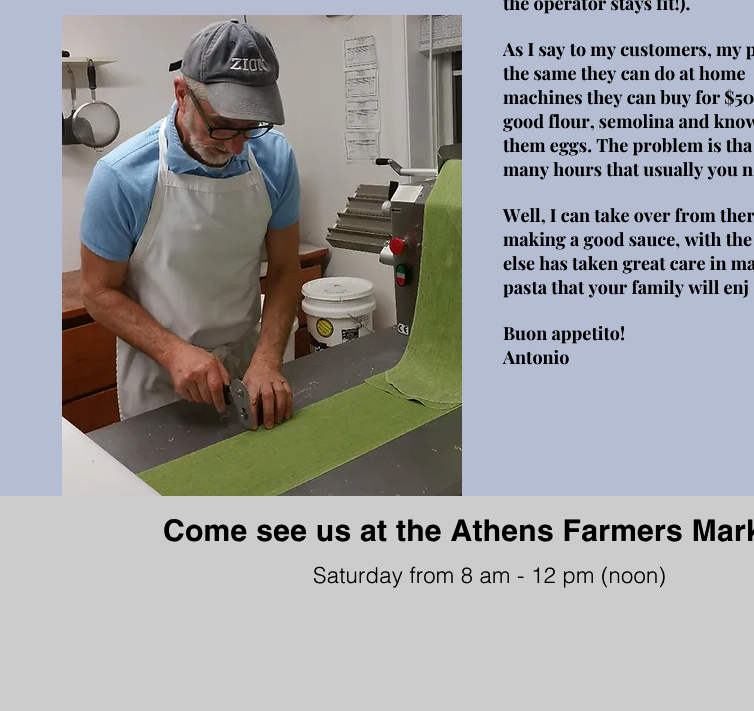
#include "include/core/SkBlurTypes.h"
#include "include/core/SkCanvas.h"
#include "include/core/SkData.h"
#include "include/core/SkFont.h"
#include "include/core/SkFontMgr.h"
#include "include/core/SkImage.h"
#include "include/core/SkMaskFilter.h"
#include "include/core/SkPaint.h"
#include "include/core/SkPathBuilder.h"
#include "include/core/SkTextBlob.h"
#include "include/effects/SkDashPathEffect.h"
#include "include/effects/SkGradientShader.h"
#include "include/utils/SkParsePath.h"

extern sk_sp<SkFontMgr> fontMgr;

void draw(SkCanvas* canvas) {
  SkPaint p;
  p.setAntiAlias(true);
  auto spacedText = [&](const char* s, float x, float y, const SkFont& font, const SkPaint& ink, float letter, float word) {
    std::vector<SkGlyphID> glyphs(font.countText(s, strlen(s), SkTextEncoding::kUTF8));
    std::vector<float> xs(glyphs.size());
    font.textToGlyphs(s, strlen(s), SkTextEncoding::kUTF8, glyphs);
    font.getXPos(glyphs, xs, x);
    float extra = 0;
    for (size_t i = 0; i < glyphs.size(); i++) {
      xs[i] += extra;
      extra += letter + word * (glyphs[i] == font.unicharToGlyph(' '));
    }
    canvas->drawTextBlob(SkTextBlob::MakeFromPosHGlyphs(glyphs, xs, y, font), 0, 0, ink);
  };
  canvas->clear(SkColorSetRGB(181, 189, 211));
  canvas->drawImageRect(SkImages::DeferredFromEncodedData(SkData::MakeFromFileName("images/1.png")), SkRect::MakeLTRB(62, 15, 462, 496), SkSamplingOptions());
  p.setColor(SkColorSetRGB(204, 204, 204));
  canvas->drawRect(SkRect::MakeLTRB(0, 496, 754, 711), p);
  SkFont font1(fontMgr->matchFamilyStyle("Playfair Display", SkFontStyle::Bold()), 18);
  font1.setSubpixel(true);
  p.setColor(SK_ColorBLACK);
  canvas->drawString("the operator stays fit!).", 503, 10, font1, p);
  canvas->drawString("As I say to my customers, my p", 503, 56, font1, p);
  canvas->drawString("the same they can do at home", 503, 80, font1, p);
  canvas->drawString("machines they can buy for $50", 503, 104, font1, p);
  canvas->drawString("good flour, semolina and know", 503, 128, font1, p);
  canvas->drawString("them eggs. The problem is tha", 503, 152, font1, p);
  canvas->drawString("many hours that usually you n", 503, 176, font1, p);
  canvas->drawString("Well, I can take over from ther", 503, 222, font1, p);
  canvas->drawString("making a good sauce, with the", 503, 246, font1, p);
  canvas->drawString("else has taken great care in ma", 503, 270, font1, p);
  canvas->drawString("pasta that your family will enj", 503, 294, font1, p);
  canvas->drawString("Buon appetito!", 503, 340, font1, p);
  canvas->drawString("Antonio", 503, 364, font1, p);
  SkFont font2(fontMgr->matchFamilyStyle("helvetica", SkFontStyle::Bold()), 30);
  font2.setSubpixel(true);
  spacedText("Come see us at the Athens Farmers Mark", 163, 541, font2, p, 0.3f, 0);
  SkFont font3(fontMgr->matchFamilyStyle("helvetica", SkFontStyle(300, SkFontStyle::kNormal_Width, SkFontStyle::kUpright_Slant)), 22);
  font3.setSubpixel(true);
  spacedText("Saturday from 8 am - 12 pm (noon)", 313, 583, font3, p, 0.25f, 0);
}
